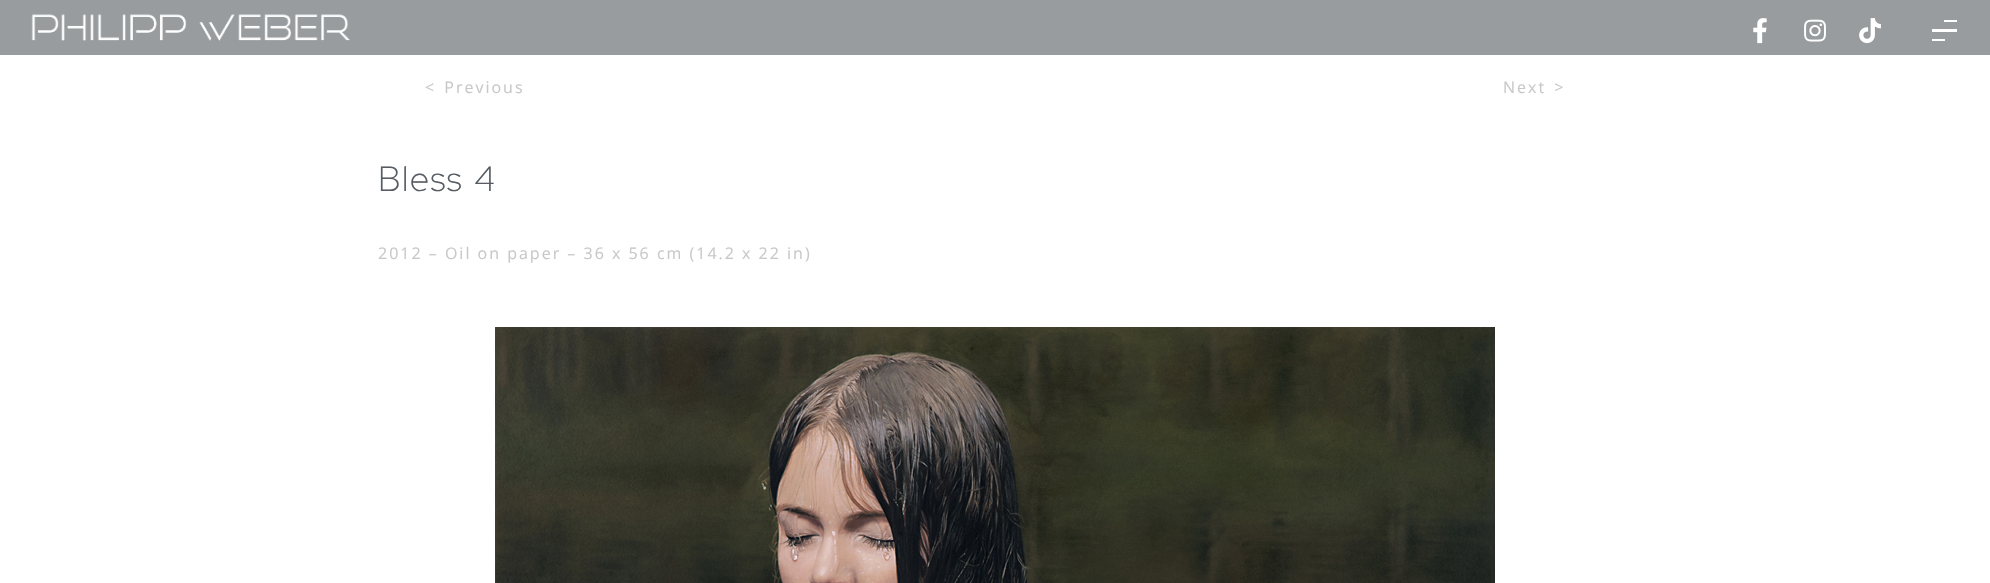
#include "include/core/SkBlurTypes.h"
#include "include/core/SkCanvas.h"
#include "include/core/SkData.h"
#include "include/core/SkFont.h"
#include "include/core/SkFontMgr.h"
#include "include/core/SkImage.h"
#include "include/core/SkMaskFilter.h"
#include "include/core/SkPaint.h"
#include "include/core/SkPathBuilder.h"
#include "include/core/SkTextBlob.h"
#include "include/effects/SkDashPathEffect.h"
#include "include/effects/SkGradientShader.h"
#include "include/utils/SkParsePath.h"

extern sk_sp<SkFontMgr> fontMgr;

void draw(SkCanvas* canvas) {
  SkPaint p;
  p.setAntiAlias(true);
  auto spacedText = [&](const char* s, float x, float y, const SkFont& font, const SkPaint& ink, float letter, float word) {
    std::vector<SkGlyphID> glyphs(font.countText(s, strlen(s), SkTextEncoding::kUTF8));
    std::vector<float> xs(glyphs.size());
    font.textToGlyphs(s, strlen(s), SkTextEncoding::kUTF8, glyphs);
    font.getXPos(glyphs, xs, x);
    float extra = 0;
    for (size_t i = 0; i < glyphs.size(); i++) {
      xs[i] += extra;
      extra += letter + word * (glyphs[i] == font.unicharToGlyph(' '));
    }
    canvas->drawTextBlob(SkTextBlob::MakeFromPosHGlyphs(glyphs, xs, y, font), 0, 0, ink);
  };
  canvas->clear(SK_ColorWHITE);
  p.setColor(SkColorSetRGB(152, 156, 159));
  canvas->drawRect(SkRect::MakeLTRB(0, 0, 1990, 55), p);
  canvas->drawImageRect(SkImages::DeferredFromEncodedData(SkData::MakeFromFileName("images/1.png")), SkRect::MakeLTRB(31, 14, 350, 41), SkSamplingOptions());
  canvas->drawImageRect(SkImages::DeferredFromEncodedData(SkData::MakeFromFileName("images/2.png")), SkRect::MakeLTRB(1753, 18, 1767, 44), SkSamplingOptions());
  canvas->drawImageRect(SkImages::DeferredFromEncodedData(SkData::MakeFromFileName("images/3.png")), SkRect::MakeLTRB(1804, 19, 1826, 42), SkSamplingOptions());
  canvas->drawImageRect(SkImages::DeferredFromEncodedData(SkData::MakeFromFileName("images/4.png")), SkRect::MakeLTRB(1859, 18, 1881, 44), SkSamplingOptions());
  p.setColor(SK_ColorWHITE);
  canvas->drawRect(SkRect::MakeLTRB(1932, 39, 1945, 41), p);
  canvas->drawRect(SkRect::MakeLTRB(1944, 20, 1957, 22), p);
  canvas->drawRect(SkRect::MakeLTRB(1932, 29, 1957, 32), p);
  canvas->drawImageRect(SkImages::DeferredFromEncodedData(SkData::MakeFromFileName("images/5.png")), SkRect::MakeLTRB(495, 327, 1495, 583), SkSamplingOptions());
  SkFont font1(fontMgr->matchFamilyStyle("Open Sans", SkFontStyle::Normal()), 16);
  font1.setSubpixel(true);
  p.setColor(SkColorSetRGB(199, 201, 199));
  spacedText("< Previous", 425, 93, font1, p, 2, 2);
  spacedText("Next >", 1503, 93, font1, p, 2, 2);
  SkFont font2(fontMgr->matchFamilyStyle("Red Hat Display", SkFontStyle(300, SkFontStyle::kNormal_Width, SkFontStyle::kUpright_Slant)), 35);
  font2.setSubpixel(true);
  p.setColor(SkColorSetRGB(86, 92, 98));
  spacedText("Bless 4", 378, 191, font2, p, 1.5f, 2);
  p.setColor(SkColorSetRGB(199, 201, 199));
  spacedText("2012 – Oil on paper – 36 x 56 cm (14.2 x 22 in)", 378, 259, font1, p, 2, 0);
}
